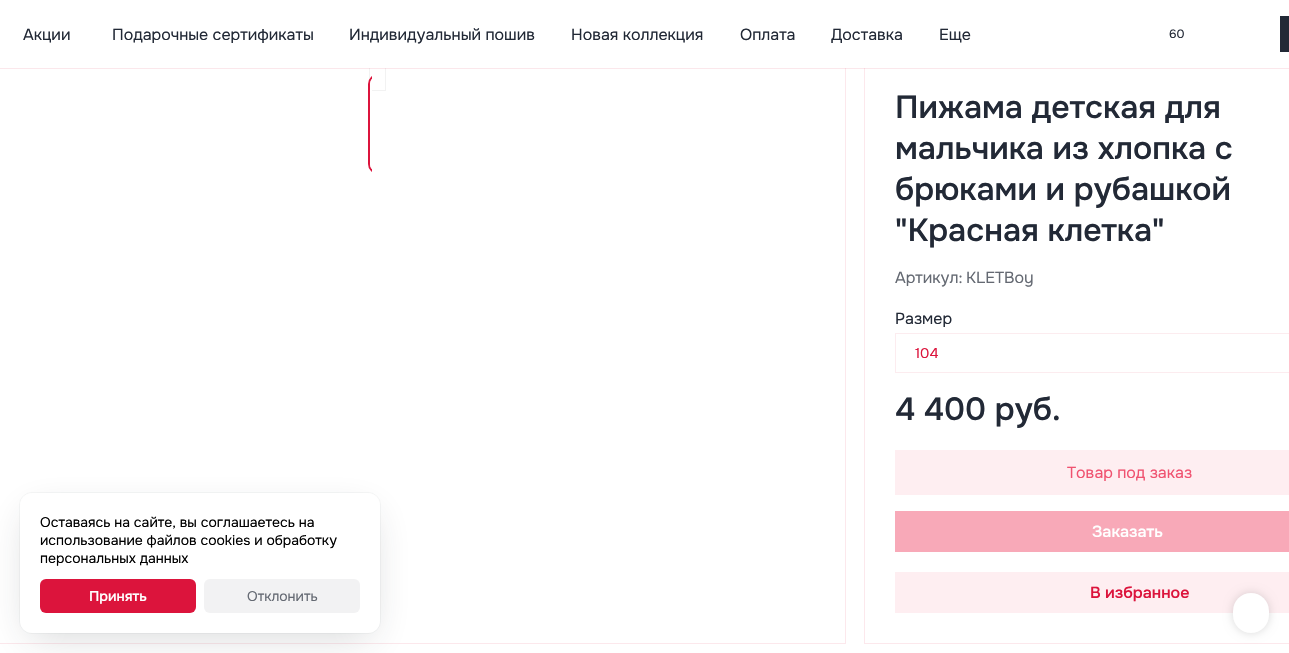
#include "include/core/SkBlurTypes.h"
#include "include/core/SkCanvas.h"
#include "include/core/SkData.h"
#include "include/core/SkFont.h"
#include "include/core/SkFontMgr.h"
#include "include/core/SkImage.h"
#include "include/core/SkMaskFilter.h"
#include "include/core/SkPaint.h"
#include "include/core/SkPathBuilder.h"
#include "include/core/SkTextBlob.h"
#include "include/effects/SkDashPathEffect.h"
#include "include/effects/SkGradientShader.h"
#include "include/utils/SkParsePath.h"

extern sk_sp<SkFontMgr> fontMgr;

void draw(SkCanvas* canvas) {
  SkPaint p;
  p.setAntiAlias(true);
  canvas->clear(SK_ColorWHITE);
  p.setStyle(SkPaint::kStroke_Style);
  p.setStrokeWidth(1);
  p.setColor(SkColorSetRGB(252, 232, 236));
  canvas->drawRect(SkRect::MakeLTRB(-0.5f, 36.5f, 845.5f, 643.5f), p);
  p.setColor(SkColorSetARGB(13, 0, 0, 0));
  canvas->drawRect(SkRect::MakeLTRB(369.5f, 29.5f, 385.5f, 90.5f), p);
  p.setStyle(SkPaint::kFill_Style);
  p.setColor(SK_ColorWHITE);
  canvas->drawPath(SkPathBuilder().moveTo(370, 57).lineTo(372, 57).lineTo(372, 90).lineTo(377.5f, 90).cubicTo(373.5f, 90, 370, 86.5f, 370, 82.5f).close().detach(), p);
  p.setStyle(SkPaint::kStroke_Style);
  p.setColor(SkColorSetRGB(252, 232, 236));
  canvas->drawRect(SkRect::MakeLTRB(864.5f, 36.5f, 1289.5f, 643.5f), p);
  p.setStyle(SkPaint::kFill_Style);
  p.setColor(SkColorSetARGB(26, 220, 20, 60));
  canvas->drawRect(SkRect::MakeLTRB(0, 68, 1289, 69), p);
  p.setColor(SK_ColorWHITE);
  canvas->drawRect(SkRect::MakeLTRB(0, 29, 1289, 68), p);
  p.setColor(SkColorSetRGB(34, 41, 54));
  canvas->drawRect(SkRect::MakeLTRB(1280, 16, 1289, 52), p);
  canvas->save();
  canvas->clipRect(SkRect::MakeLTRB(368, 57, 372, 174));
  p.setStyle(SkPaint::kStroke_Style);
  p.setStrokeWidth(2);
  p.setColor(SkColorSetRGB(220, 20, 60));
  canvas->drawRoundRect(SkRect::MakeLTRB(369, 75, 467, 173), 9, 9, p);
  canvas->restore();
  canvas->drawImageRect(SkImages::DeferredFromEncodedData(SkData::MakeFromFileName("images/1.png")), SkRect::MakeLTRB(370, 79, 372, 169), SkSamplingOptions());
  p.setStrokeWidth(1);
  p.setColor(SkColorSetRGB(252, 236, 239));
  canvas->drawRect(SkRect::MakeLTRB(895.5f, 333.5f, 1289.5f, 372.5f), p);
  p.setStyle(SkPaint::kFill_Style);
  p.setColor(SkColorSetRGB(254, 238, 241));
  canvas->drawRect(SkRect::MakeLTRB(895, 450, 1289, 495), p);
  p.setColor(SkColorSetRGB(248, 169, 184));
  canvas->drawRect(SkRect::MakeLTRB(895, 511, 1289, 552), p);
  p.setColor(SkColorSetRGB(254, 238, 241));
  canvas->drawRect(SkRect::MakeLTRB(895, 572, 1289, 613), p);
  p.setColor(SkColorSetARGB(38, 0, 0, 0));
  p.setMaskFilter(SkMaskFilter::MakeBlur(kNormal_SkBlurStyle, 5));
  canvas->drawRoundRect(SkRect::MakeLTRB(1233, 593, 1269, 633), 18, 18, p);
  p.setMaskFilter(nullptr);
  p.setColor(SK_ColorWHITE);
  canvas->drawRoundRect(SkRect::MakeLTRB(1233, 593, 1269, 633), 18, 18, p);
  p.setStyle(SkPaint::kStroke_Style);
  p.setColor(SkColorSetRGB(246, 247, 247));
  canvas->drawRoundRect(SkRect::MakeLTRB(19.5f, 492.5f, 380.5f, 633.5f), 12.5f, 12.5f, p);
  p.setStyle(SkPaint::kFill_Style);
  p.setColor(SkColorSetARGB(51, 39, 43, 51));
  p.setMaskFilter(SkMaskFilter::MakeBlur(kNormal_SkBlurStyle, 20));
  canvas->drawRoundRect(SkRect::MakeLTRB(30, 515, 370, 635), 2, 2, p);
  p.setMaskFilter(nullptr);
  p.setColor(SK_ColorWHITE);
  canvas->drawRoundRect(SkRect::MakeLTRB(20, 493, 380, 633), 12, 12, p);
  p.setColor(SkColorSetRGB(220, 20, 60));
  canvas->drawRoundRect(SkRect::MakeLTRB(40, 579, 196, 613), 6, 6, p);
  p.setColor(SkColorSetRGB(242, 242, 243));
  canvas->drawRoundRect(SkRect::MakeLTRB(204, 579, 360, 613), 6, 6, p);
  SkFont font1(fontMgr->matchFamilyStyle("Onest", SkFontStyle::Normal()), 16);
  font1.setSubpixel(true);
  p.setColor(SkColorSetRGB(34, 41, 54));
  canvas->drawString("Акции", 23, 40, font1, p);
  canvas->drawString("Подарочные сертификаты", 112, 40, font1, p);
  canvas->drawString("Индивидуальный пошив", 349, 40, font1, p);
  canvas->drawString("Новая коллекция", 571, 40, font1, p);
  canvas->drawString("Оплата", 740, 40, font1, p);
  canvas->drawString("Доставка", 831, 40, font1, p);
  canvas->drawString("Еще", 939, 40, font1, p);
  SkFont font2(fontMgr->matchFamilyStyle("Onest", SkFontStyle::Normal()), 12);
  font2.setSubpixel(true);
  canvas->drawString("60", 1169, 38, font2, p);
  SkFont font3(fontMgr->matchFamilyStyle("Onest", SkFontStyle(500, SkFontStyle::kNormal_Width, SkFontStyle::kUpright_Slant)), 32);
  font3.setSubpixel(true);
  canvas->drawString("Пижама детская для", 895, 118, font3, p);
  canvas->drawString("мальчика из хлопка с", 895, 159, font3, p);
  canvas->drawString("брюками и рубашкой", 895, 200, font3, p);
  canvas->drawString("\"Красная клетка\"", 895, 241, font3, p);
  p.setColor(SkColorSetRGB(100, 105, 114));
  canvas->drawString("Артикул:", 895, 283, font1, p);
  canvas->drawString("KLETBoy", 966, 283, font1, p);
  p.setColor(SkColorSetRGB(34, 41, 54));
  canvas->drawString("Размер", 895, 324, font1, p);
  SkFont font4(fontMgr->matchFamilyStyle("Onest", SkFontStyle::Normal()), 14);
  font4.setSubpixel(true);
  p.setColor(SkColorSetRGB(220, 20, 60));
  canvas->drawString("104", 915, 358, font4, p);
  p.setColor(SkColorSetRGB(34, 41, 54));
  canvas->drawString("4 400 руб.", 895, 420, font3, p);
  p.setColor(SkColorSetRGB(240, 82, 112));
  canvas->drawString("Товар под заказ", 1067, 478, font1, p);
  SkFont font5(fontMgr->matchFamilyStyle("Onest", SkFontStyle(500, SkFontStyle::kNormal_Width, SkFontStyle::kUpright_Slant)), 16);
  font5.setSubpixel(true);
  p.setColor(SK_ColorWHITE);
  canvas->drawString("Заказать", 1092, 537, font5, p);
  p.setColor(SkColorSetRGB(220, 20, 60));
  canvas->drawString("В избранное", 1090, 598, font5, p);
  p.setColor(SK_ColorBLACK);
  canvas->drawString("Оставаясь на сайте, вы соглашаетесь на", 40, 527, font4, p);
  canvas->drawString("использование файлов cookies и обработку", 40, 545, font4, p);
  canvas->drawString("персональных данных", 40, 563, font4, p);
  SkFont font6(fontMgr->matchFamilyStyle("Onest", SkFontStyle(500, SkFontStyle::kNormal_Width, SkFontStyle::kUpright_Slant)), 14);
  font6.setSubpixel(true);
  p.setColor(SK_ColorWHITE);
  canvas->drawString("Принять", 89, 601, font6, p);
  p.setColor(SkColorSetRGB(100, 105, 114));
  canvas->drawString("Отклонить", 247, 601, font4, p);
}
